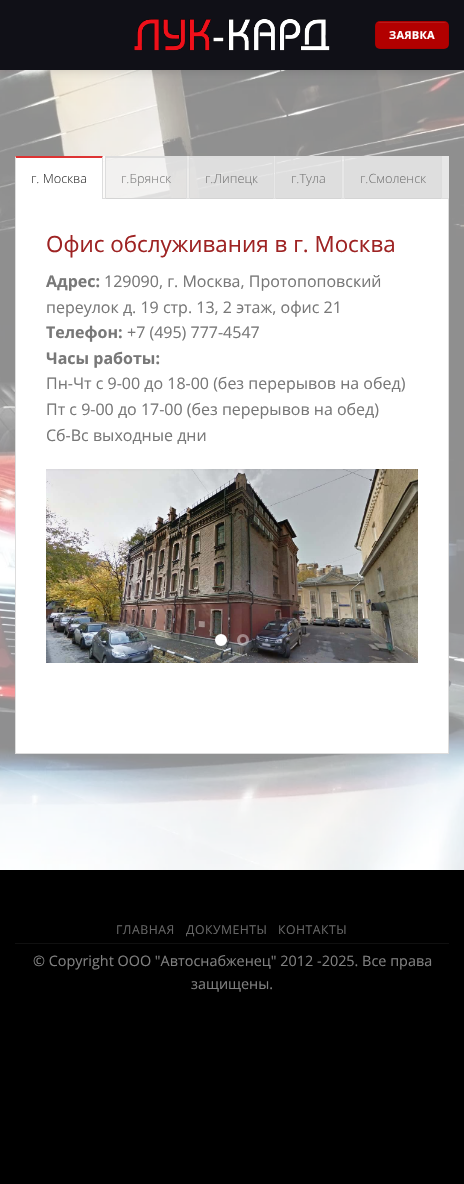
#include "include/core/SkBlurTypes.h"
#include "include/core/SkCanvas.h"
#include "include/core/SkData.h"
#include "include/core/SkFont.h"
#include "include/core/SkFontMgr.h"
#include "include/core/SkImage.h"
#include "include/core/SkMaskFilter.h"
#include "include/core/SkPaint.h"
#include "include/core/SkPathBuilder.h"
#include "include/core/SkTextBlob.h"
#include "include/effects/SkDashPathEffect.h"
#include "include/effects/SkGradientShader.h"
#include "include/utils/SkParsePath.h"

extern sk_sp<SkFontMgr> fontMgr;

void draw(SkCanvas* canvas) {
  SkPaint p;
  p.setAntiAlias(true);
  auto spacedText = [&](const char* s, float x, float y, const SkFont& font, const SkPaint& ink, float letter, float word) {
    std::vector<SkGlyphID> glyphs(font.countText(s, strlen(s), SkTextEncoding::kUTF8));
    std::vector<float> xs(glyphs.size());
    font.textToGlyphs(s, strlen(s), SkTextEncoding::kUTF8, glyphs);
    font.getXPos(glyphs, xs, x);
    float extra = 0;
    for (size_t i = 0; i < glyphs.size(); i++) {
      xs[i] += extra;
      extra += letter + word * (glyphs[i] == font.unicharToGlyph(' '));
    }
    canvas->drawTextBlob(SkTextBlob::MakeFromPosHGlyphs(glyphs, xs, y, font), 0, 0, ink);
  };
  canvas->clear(SK_ColorBLACK);
  canvas->drawImageRect(SkImages::DeferredFromEncodedData(SkData::MakeFromFileName("images/2.png")), SkRect::MakeLTRB(0, 70, 464, 870), SkSamplingOptions());
  p.setColor(SkColorSetARGB(38, 0, 0, 0));
  p.setMaskFilter(SkMaskFilter::MakeBlur(kNormal_SkBlurStyle, 5));
  canvas->drawRect(SkRect::MakeLTRB(1, 1, 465, 71), p);
  p.setMaskFilter(nullptr);
  p.setColor(SkColorSetRGB(16, 16, 23));
  canvas->drawRect(SkRect::MakeLTRB(0, 0, 464, 70), p);
  canvas->drawImageRect(SkImages::DeferredFromEncodedData(SkData::MakeFromFileName("images/1.png")), SkRect::MakeLTRB(134, 18, 330, 51), SkSamplingOptions());
  p.setColor(SkColorSetRGB(178, 0, 0));
  canvas->drawRoundRect(SkRect::MakeLTRB(375, 21, 449, 49), 5, 5, p);
  p.setStyle(SkPaint::kStroke_Style);
  p.setStrokeWidth(1);
  p.setColor(SkColorSetARGB(13, 0, 0, 0));
  canvas->drawRect(SkRect::MakeLTRB(375.5f, 21.5f, 448.5f, 48.5f), p);
  p.setStyle(SkPaint::kFill_Style);
  p.setColor(SkColorSetARGB(26, 255, 255, 255));
  canvas->drawPath(SkPathBuilder().moveTo(380, 22).lineTo(377, 23).lineTo(447, 23).lineTo(444, 22).close().detach(), p);
  p.setColor(SkColorSetARGB(199, 255, 255, 255));
  canvas->drawRect(SkRect::MakeLTRB(103, 156, 449, 198), p);
  p.setColor(SK_ColorWHITE);
  canvas->drawRect(SkRect::MakeLTRB(15.5f, 198.5f, 448.5f, 753.5f), p);
  p.setStyle(SkPaint::kStroke_Style);
  p.setColor(SkColorSetRGB(221, 221, 221));
  canvas->drawRect(SkRect::MakeLTRB(15.5f, 198.5f, 448.5f, 753.5f), p);
  p.setStyle(SkPaint::kFill_Style);
  p.setColor(SK_ColorWHITE);
  canvas->drawRect(SkRect::MakeLTRB(15, 156, 103, 199), p);
  p.setColor(SkColorSetRGB(221, 51, 51));
  canvas->drawPath(SkPathBuilder().moveTo(15, 156).lineTo(103, 156).lineTo(102, 158).lineTo(16, 158).close().detach(), p);
  p.setColor(SkColorSetRGB(221, 221, 221));
  canvas->drawPath(SkPathBuilder().moveTo(103, 156).lineTo(103, 199).lineTo(102, 199).lineTo(102, 158).close().detach(), p);
  canvas->drawPath(SkPathBuilder().moveTo(15, 199).lineTo(15, 156).lineTo(16, 158).lineTo(16, 199).close().detach(), p);
  p.setColor(SkColorSetARGB(10, 0, 0, 0));
  canvas->drawRect(SkRect::MakeLTRB(106, 158, 186, 199), p);
  p.setColor(SkColorSetRGB(221, 221, 221));
  canvas->drawRect(SkRect::MakeLTRB(105, 156, 187, 158), p);
  canvas->drawRect(SkRect::MakeLTRB(186, 156, 187, 199), p);
  canvas->drawRect(SkRect::MakeLTRB(105, 156, 106, 199), p);
  p.setColor(SkColorSetARGB(10, 0, 0, 0));
  canvas->drawRect(SkRect::MakeLTRB(190, 158, 273, 199), p);
  p.setColor(SkColorSetRGB(221, 221, 221));
  canvas->drawRect(SkRect::MakeLTRB(189, 156, 274, 158), p);
  canvas->drawRect(SkRect::MakeLTRB(273, 156, 274, 199), p);
  canvas->drawRect(SkRect::MakeLTRB(189, 156, 190, 199), p);
  p.setColor(SkColorSetARGB(10, 0, 0, 0));
  canvas->drawRect(SkRect::MakeLTRB(276, 158, 341, 199), p);
  p.setColor(SkColorSetRGB(221, 221, 221));
  canvas->drawRect(SkRect::MakeLTRB(275, 156, 342, 158), p);
  canvas->drawRect(SkRect::MakeLTRB(341, 156, 342, 199), p);
  canvas->drawRect(SkRect::MakeLTRB(275, 156, 276, 199), p);
  p.setColor(SkColorSetARGB(10, 0, 0, 0));
  canvas->drawRect(SkRect::MakeLTRB(345, 158, 441, 199), p);
  p.setColor(SkColorSetRGB(221, 221, 221));
  canvas->drawRect(SkRect::MakeLTRB(344, 156, 442, 158), p);
  canvas->drawRect(SkRect::MakeLTRB(441, 156, 442, 199), p);
  canvas->drawRect(SkRect::MakeLTRB(344, 156, 345, 199), p);
  canvas->drawImageRect(SkImages::DeferredFromEncodedData(SkData::MakeFromFileName("images/3.png")), SkRect::MakeLTRB(46, 469, 418, 663), SkSamplingOptions());
  p.setColor(SK_ColorWHITE);
  canvas->drawCircle(221, 640, 4.5f, p);
  p.setStyle(SkPaint::kStroke_Style);
  p.setStrokeWidth(3);
  canvas->drawCircle(221, 640, 4.5f, p);
  p.setColor(SkColorSetARGB(102, 255, 255, 255));
  canvas->drawCircle(243, 640, 4.5f, p);
  p.setStyle(SkPaint::kFill_Style);
  p.setColor(SkColorSetRGB(16, 16, 16));
  canvas->drawRect(SkRect::MakeLTRB(15, 943, 449, 944), p);
  SkFont font1(fontMgr->matchFamilyStyle("Open Sans", SkFontStyle::Bold()), 11);
  font1.setSubpixel(true);
  p.setColor(SK_ColorWHITE);
  spacedText("ЗАЯВКА", 389, 39, font1, p, 0.25f, 0);
  SkFont font2(fontMgr->matchFamilyStyle("Open Sans", SkFontStyle(300, SkFontStyle::kNormal_Width, SkFontStyle::kUpright_Slant)), 12.75f);
  font2.setSubpixel(true);
  p.setColor(SkColorSetRGB(53, 53, 53));
  canvas->drawString("г. Москва", 31, 183, font2, p);
  p.setColor(SkColorSetRGB(128, 128, 128));
  canvas->drawString("г.Брянск", 121, 183, font2, p);
  p.setColor(SkColorSetRGB(120, 120, 120));
  canvas->drawString("г.Липецк", 205, 183, font2, p);
  canvas->drawString("г.Тула", 291, 183, font2, p);
  canvas->drawString("г.Смоленск", 360, 183, font2, p);
  SkFont font3(fontMgr->matchFamilyStyle("Open Sans", SkFontStyle::Normal()), 22.4f);
  font3.setSubpixel(true);
  p.setColor(SkColorSetRGB(158, 35, 35));
  canvas->drawString("Офис обслуживания в г. Москва", 46, 252, font3, p);
  SkFont font4(fontMgr->matchFamilyStyle("Open Sans", SkFontStyle::Bold()), 16);
  font4.setSubpixel(true);
  p.setColor(SkColorSetRGB(120, 120, 120));
  canvas->drawString("Адрес:", 46, 287, font4, p);
  SkFont font5(fontMgr->matchFamilyStyle("Open Sans", SkFontStyle::Normal()), 16);
  font5.setSubpixel(true);
  canvas->drawString("129090, г. Москва, Протопоповский", 104, 287, font5, p);
  canvas->drawString("переулок д. 19 стр. 13, 2 этаж, офис 21", 46, 313, font5, p);
  canvas->drawString("Телефон:", 46, 338, font4, p);
  canvas->drawString("+7 (495) 777-4547", 127, 338, font5, p);
  canvas->drawString("Часы работы:", 46, 364, font4, p);
  canvas->drawString("Пн-Чт с 9-00 до 18-00 (без перерывов на обед)", 46, 389, font5, p);
  canvas->drawString("Пт с 9-00 до 17-00 (без перерывов на обед)", 46, 415, font5, p);
  canvas->drawString("Сб-Вс выходные дни", 46, 441, font5, p);
  SkFont font6(fontMgr->matchFamilyStyle("Open Sans", SkFontStyle::Normal()), 12.25f);
  font6.setSubpixel(true);
  p.setColor(SkColorSetRGB(102, 102, 102));
  spacedText("ГЛАВНАЯ", 116, 934, font6, p, 0.5f, 0);
  spacedText("ДОКУМЕНТЫ", 186, 934, font6, p, 0.5f, 0);
  spacedText("КОНТАКТЫ", 278, 934, font6, p, 0.5f, 0);
  SkFont font7(fontMgr->matchFamilyStyle("Open Sans", SkFontStyle::Normal()), 14.4f);
  font7.setSubpixel(true);
  p.setColor(SkColorSetRGB(128, 128, 128));
  canvas->drawString("© Copyright ООО \"Автоснабженец\" 2012 -2025. Все права", 33, 966, font7, p);
  canvas->drawString("защищены.", 191, 989, font7, p);
}
